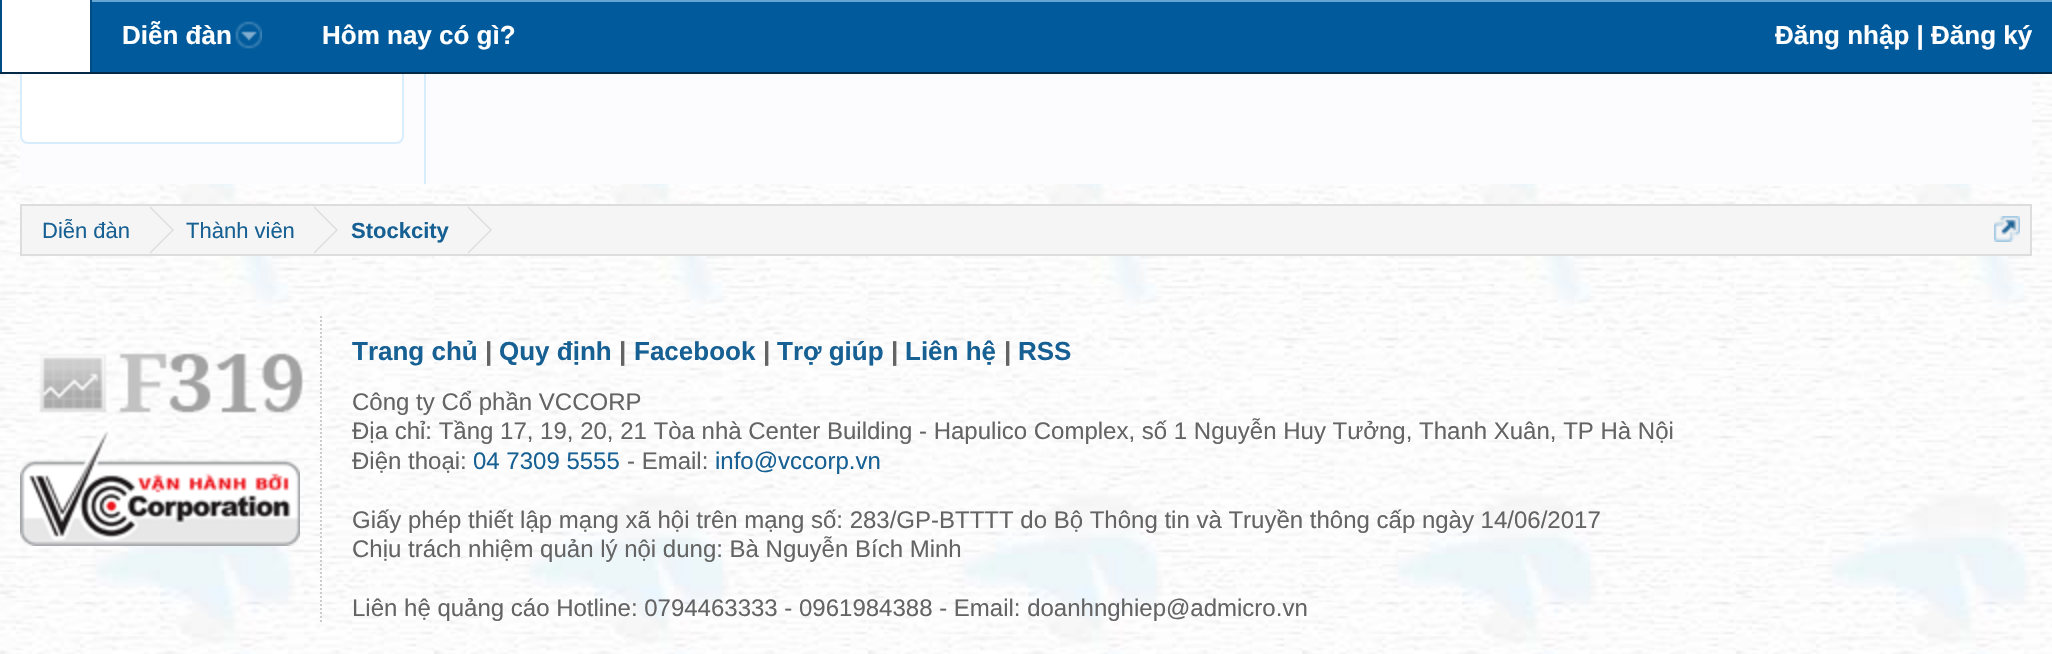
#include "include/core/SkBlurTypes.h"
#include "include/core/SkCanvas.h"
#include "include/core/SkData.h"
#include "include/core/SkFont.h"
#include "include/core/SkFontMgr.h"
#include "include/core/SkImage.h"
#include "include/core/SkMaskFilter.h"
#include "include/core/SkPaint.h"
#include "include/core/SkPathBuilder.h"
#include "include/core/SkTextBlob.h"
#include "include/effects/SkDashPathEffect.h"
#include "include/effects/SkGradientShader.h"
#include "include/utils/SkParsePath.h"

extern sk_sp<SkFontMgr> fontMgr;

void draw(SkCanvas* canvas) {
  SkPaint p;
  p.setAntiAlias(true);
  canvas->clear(SK_ColorWHITE);
  canvas->drawImageRect(SkImages::DeferredFromEncodedData(SkData::MakeFromFileName("images/1.png")), SkRect::MakeLTRB(0, 74, 2052, 654), SkSamplingOptions());
  p.setColor(SkColorSetRGB(252, 252, 255));
  canvas->drawRect(SkRect::MakeLTRB(20, 74, 2032, 184), p);
  p.setColor(SK_ColorWHITE);
  canvas->drawRoundRect(SkRect::MakeLTRB(21, -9, 403, 143), 7, 7, p);
  p.setStyle(SkPaint::kStroke_Style);
  p.setStrokeWidth(2);
  p.setColor(SkColorSetRGB(215, 237, 252));
  canvas->drawRoundRect(SkRect::MakeLTRB(21, -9, 403, 143), 7, 7, p);
  p.setStyle(SkPaint::kFill_Style);
  p.setColor(SkColorSetRGB(0, 90, 156));
  canvas->drawRect(SkRect::MakeLTRB(92, 2, 2052, 72), p);
  p.setColor(SkColorSetRGB(101, 165, 209));
  canvas->drawRect(SkRect::MakeLTRB(92, 0, 2052, 2), p);
  p.setColor(SkColorSetRGB(3, 42, 70));
  canvas->drawRect(SkRect::MakeLTRB(0, 72, 2052, 74), p);
  p.setColor(SK_ColorWHITE);
  canvas->drawRect(SkRect::MakeLTRB(20, 0, 22, 72), p);
  p.setColor(SkColorSetRGB(0, 77, 133));
  canvas->drawRect(SkRect::MakeLTRB(90, 0, 92, 72), p);
  canvas->drawRect(SkRect::MakeLTRB(0, 0, 2, 72), p);
  canvas->drawImageRect(SkImages::DeferredFromEncodedData(SkData::MakeFromFileName("images/2.png")), SkRect::MakeLTRB(235, 21, 262, 49), SkSamplingOptions());
  p.setColor(SkColorSetRGB(215, 237, 252));
  canvas->drawRect(SkRect::MakeLTRB(424, 74, 426, 184), p);
  p.setColor(SkColorSetRGB(245, 245, 245));
  canvas->drawRect(SkRect::MakeLTRB(21, 205, 2031, 255), p);
  p.setStyle(SkPaint::kStroke_Style);
  p.setColor(SkColorSetRGB(221, 221, 221));
  canvas->drawRect(SkRect::MakeLTRB(21, 205, 2031, 255), p);
  p.setStyle(SkPaint::kFill_Style);
  canvas->drawPath(SkPathBuilder().moveTo(150, 254).lineTo(150, 206).lineTo(174, 230).close().detach(), p);
  p.setColor(SkColorSetRGB(245, 245, 245));
  canvas->drawPath(SkPathBuilder().moveTo(148, 254).lineTo(148, 206).lineTo(172, 230).close().detach(), p);
  p.setColor(SkColorSetRGB(221, 221, 221));
  canvas->drawPath(SkPathBuilder().moveTo(314, 254).lineTo(314, 206).lineTo(338, 230).close().detach(), p);
  p.setColor(SkColorSetRGB(245, 245, 245));
  canvas->drawPath(SkPathBuilder().moveTo(312, 254).lineTo(312, 206).lineTo(336, 230).close().detach(), p);
  p.setColor(SkColorSetRGB(221, 221, 221));
  canvas->drawPath(SkPathBuilder().moveTo(468, 254).lineTo(468, 206).lineTo(492, 230).close().detach(), p);
  p.setColor(SkColorSetRGB(245, 245, 245));
  canvas->drawPath(SkPathBuilder().moveTo(466, 254).lineTo(466, 206).lineTo(490, 230).close().detach(), p);
  canvas->drawImageRect(SkImages::DeferredFromEncodedData(SkData::MakeFromFileName("images/3.png")), SkRect::MakeLTRB(1994, 216, 2020, 242), SkSamplingOptions());
  canvas->drawImageRect(SkImages::DeferredFromEncodedData(SkData::MakeFromFileName("images/4.png")), SkRect::MakeLTRB(39, 353, 304, 413), SkSamplingOptions());
  canvas->drawImageRect(SkImages::DeferredFromEncodedData(SkData::MakeFromFileName("images/5.png")), SkRect::MakeLTRB(20, 428, 300, 546), SkSamplingOptions());
  p.setStyle(SkPaint::kStroke_Style);
  p.setColor(SkColorSetRGB(204, 204, 204));
  p.setPathEffect(SkDashPathEffect::Make({{2, 2}}, 0));
  canvas->drawPath(SkPathBuilder().moveTo(321, 316).lineTo(321, 624).detach(), p);
  p.setPathEffect(nullptr);
  SkFont font1(fontMgr->matchFamilyStyle("Liberation Sans", SkFontStyle::Bold()), 26);
  font1.setSubpixel(true);
  p.setStyle(SkPaint::kFill_Style);
  p.setColor(SK_ColorWHITE);
  canvas->drawString("Diễn đàn", 122, 44, font1, p);
  canvas->drawString("Hôm nay có gì?", 322, 44, font1, p);
  canvas->drawString("Đăng nhập | Đăng ký", 1775, 44, font1, p);
  SkFont font2(fontMgr->matchFamilyStyle("Liberation Sans", SkFontStyle::Normal()), 22);
  font2.setSubpixel(true);
  p.setColor(SkColorSetRGB(23, 96, 147));
  canvas->drawString("Diễn đàn", 42, 238, font2, p);
  canvas->drawString("Thành viên", 186, 238, font2, p);
  SkFont font3(fontMgr->matchFamilyStyle("Liberation Sans", SkFontStyle::Bold()), 22);
  font3.setSubpixel(true);
  canvas->drawString("Stockcity", 351, 238, font3, p);
  canvas->drawString("Trang chủ", 352, 360, font1, p);
  p.setColor(SkColorSetRGB(100, 100, 100));
  canvas->drawString("|", 485, 360, font1, p);
  p.setColor(SkColorSetRGB(23, 96, 147));
  canvas->drawString("Quy định", 499, 360, font1, p);
  p.setColor(SkColorSetRGB(100, 100, 100));
  canvas->drawString("|", 619, 360, font1, p);
  p.setColor(SkColorSetRGB(23, 96, 147));
  canvas->drawString("Facebook", 634, 360, font1, p);
  p.setColor(SkColorSetRGB(100, 100, 100));
  canvas->drawString("|", 763, 360, font1, p);
  p.setColor(SkColorSetRGB(23, 96, 147));
  canvas->drawString("Trợ giúp", 777, 360, font1, p);
  p.setColor(SkColorSetRGB(100, 100, 100));
  canvas->drawString("|", 891, 360, font1, p);
  p.setColor(SkColorSetRGB(23, 96, 147));
  canvas->drawString("Liên hệ", 905, 360, font1, p);
  p.setColor(SkColorSetRGB(100, 100, 100));
  canvas->drawString("|", 1004, 360, font1, p);
  p.setColor(SkColorSetRGB(23, 96, 147));
  canvas->drawString("RSS", 1018, 360, font1, p);
  SkFont font4(fontMgr->matchFamilyStyle("Liberation Sans", SkFontStyle::Normal()), 24);
  font4.setSubpixel(true);
  p.setColor(SkColorSetRGB(100, 100, 100));
  canvas->drawString("Công ty Cổ phần VCCORP", 352, 410, font4, p);
  canvas->drawString("Địa chỉ: Tầng 17, 19, 20, 21 Tòa nhà Center Building - Hapulico Complex, số 1 Nguyễn Huy Tưởng, Thanh Xuân, TP Hà Nội", 352, 439, font4, p);
  canvas->drawString("Điện thoại:", 352, 469, font4, p);
  p.setColor(SkColorSetRGB(23, 96, 147));
  canvas->drawString("04 7309 5555", 473, 469, font4, p);
  p.setColor(SkColorSetRGB(100, 100, 100));
  canvas->drawString("- Email:", 627, 469, font4, p);
  p.setColor(SkColorSetRGB(23, 96, 147));
  canvas->drawString("info@vccorp.vn", 715, 469, font4, p);
  p.setColor(SkColorSetRGB(100, 100, 100));
  canvas->drawString("Giấy phép thiết lập mạng xã hội trên mạng số: 283/GP-BTTTT do Bộ Thông tin và Truyền thông cấp ngày 14/06/2017", 352, 528, font4, p);
  canvas->drawString("Chịu trách nhiệm quản lý nội dung: Bà Nguyễn Bích Minh", 352, 557, font4, p);
  canvas->drawString("Liên hệ quảng cáo Hotline: 0794463333 - 0961984388 - Email: doanhnghiep@admicro.vn", 352, 616, font4, p);
}
